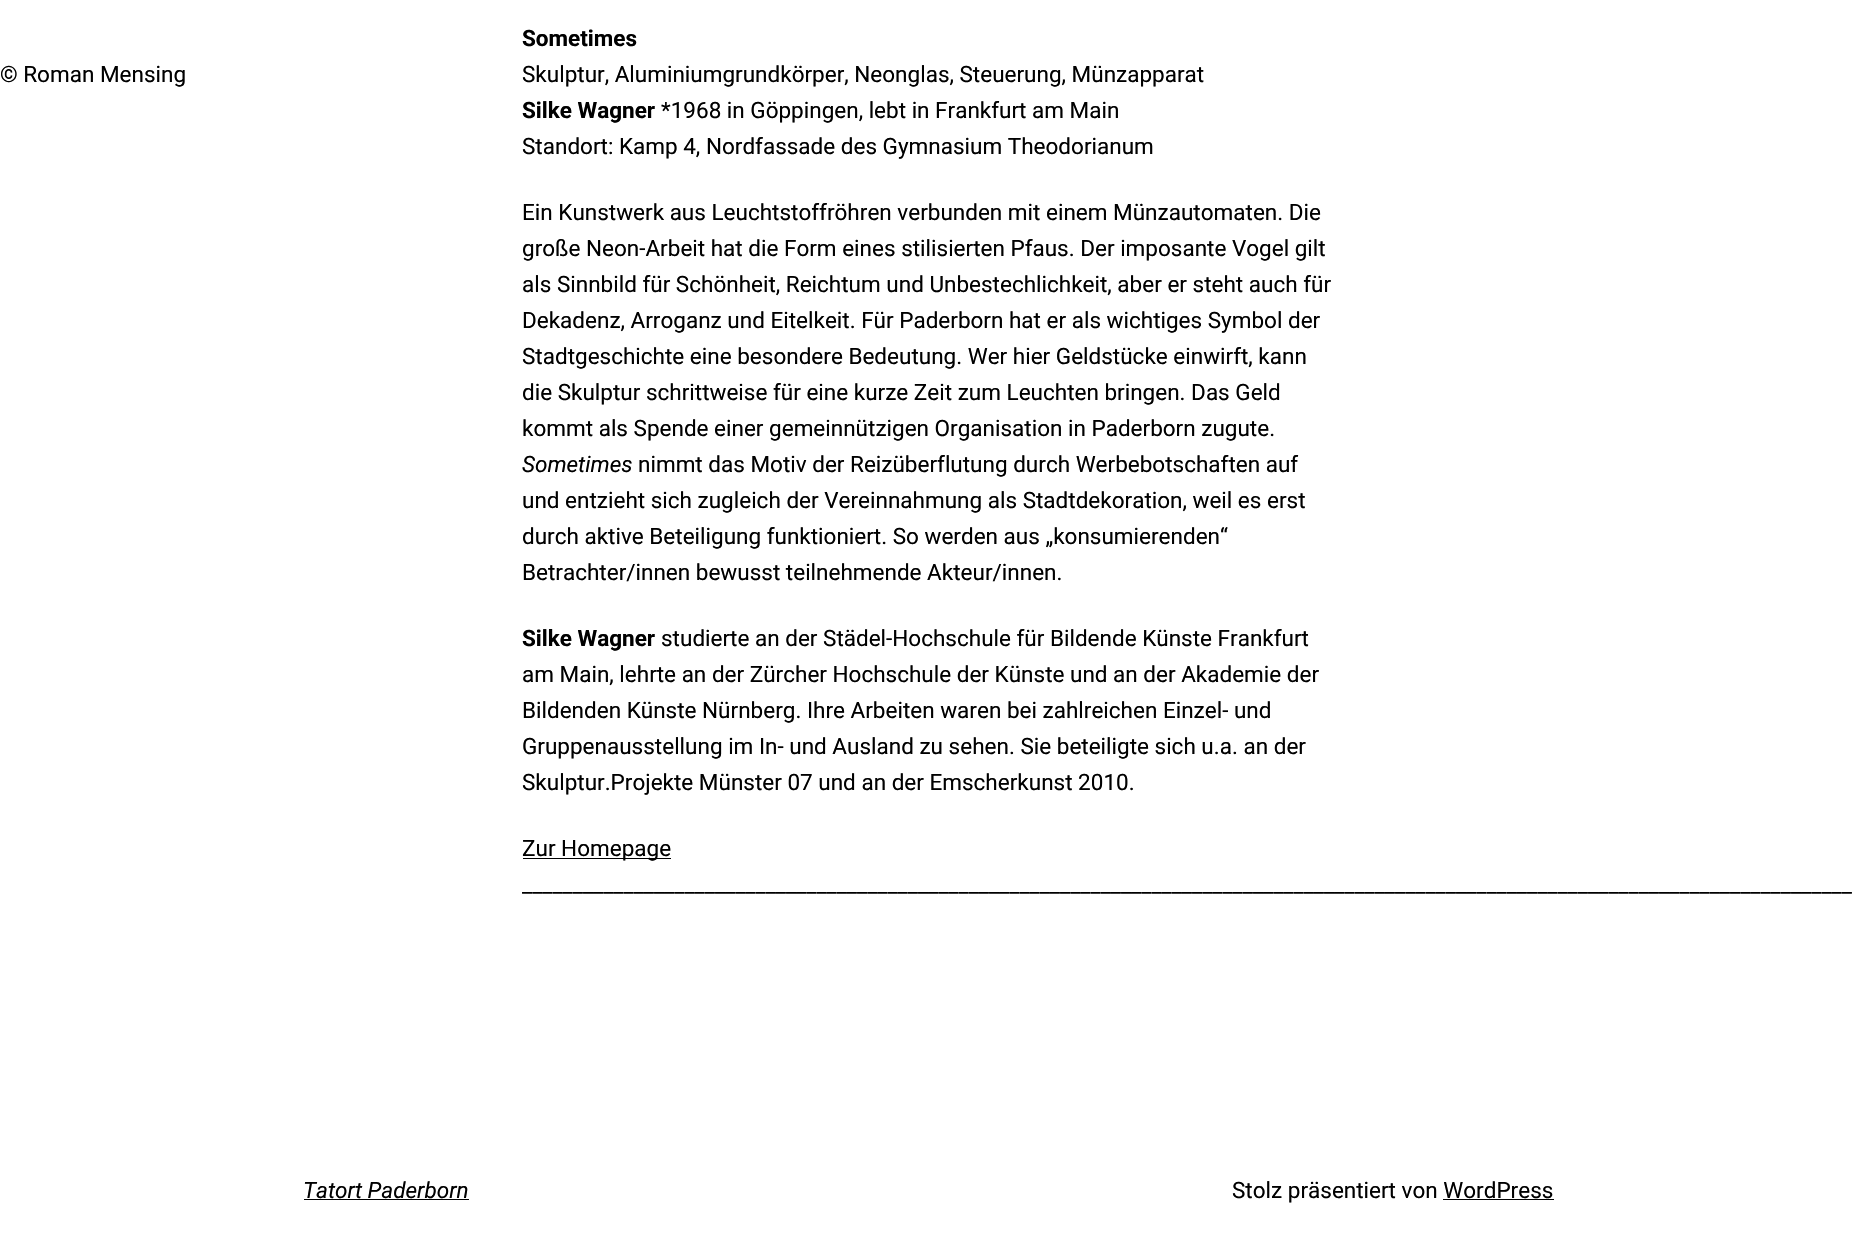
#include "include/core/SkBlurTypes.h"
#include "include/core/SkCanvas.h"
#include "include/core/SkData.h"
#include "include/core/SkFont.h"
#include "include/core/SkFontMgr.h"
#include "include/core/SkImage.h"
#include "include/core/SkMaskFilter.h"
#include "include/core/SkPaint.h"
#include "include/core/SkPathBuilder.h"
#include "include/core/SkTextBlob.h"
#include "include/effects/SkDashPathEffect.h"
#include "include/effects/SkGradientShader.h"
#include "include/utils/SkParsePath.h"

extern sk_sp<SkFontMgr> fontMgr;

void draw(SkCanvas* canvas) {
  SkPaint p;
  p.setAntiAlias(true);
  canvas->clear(SK_ColorWHITE);
  p.setColor(SK_ColorBLACK);
  canvas->drawRect(SkRect::MakeLTRB(523, 858, 671, 859), p);
  canvas->drawRect(SkRect::MakeLTRB(304, 1199, 469, 1200), p);
  canvas->drawRect(SkRect::MakeLTRB(1443, 1199, 1554, 1200), p);
  SkFont font1(fontMgr->matchFamilyStyle("Roboto", SkFontStyle::Normal()), 22.5f);
  font1.setSubpixel(true);
  canvas->drawString("© Roman Mensing", 0, 82, font1, p);
  SkFont font2(fontMgr->matchFamilyStyle("Roboto", SkFontStyle::Bold()), 22.5f);
  font2.setSubpixel(true);
  canvas->drawString("Sometimes", 522, 46, font2, p);
  canvas->drawString("Skulptur, Aluminiumgrundkörper, Neonglas, Steuerung, Münzapparat", 522, 82, font1, p);
  canvas->drawString("Silke Wagner", 522, 118, font2, p);
  canvas->drawString("*1968 in Göppingen, lebt in Frankfurt am Main", 661, 118, font1, p);
  canvas->drawString("Standort: Kamp 4, Nordfassade des Gymnasium Theodorianum", 522, 154, font1, p);
  canvas->drawString("Ein Kunstwerk aus Leuchtstoffröhren verbunden mit einem Münzautomaten. Die", 522, 220, font1, p);
  canvas->drawString("große Neon-Arbeit hat die Form eines stilisierten Pfaus. Der imposante Vogel gilt", 522, 256, font1, p);
  canvas->drawString("als Sinnbild für Schönheit, Reichtum und Unbestechlichkeit, aber er steht auch für", 522, 292, font1, p);
  canvas->drawString("Dekadenz, Arroganz und Eitelkeit. Für Paderborn hat er als wichtiges Symbol der", 522, 328, font1, p);
  canvas->drawString("Stadtgeschichte eine besondere Bedeutung. Wer hier Geldstücke einwirft, kann", 522, 364, font1, p);
  canvas->drawString("die Skulptur schrittweise für eine kurze Zeit zum Leuchten bringen. Das Geld", 522, 400, font1, p);
  canvas->drawString("kommt als Spende einer gemeinnützigen Organisation in Paderborn zugute.", 522, 436, font1, p);
  SkFont font3(fontMgr->matchFamilyStyle("Roboto", SkFontStyle::Italic()), 22.5f);
  font3.setSubpixel(true);
  canvas->drawString("Sometimes", 522, 472, font3, p);
  canvas->drawString("nimmt das Motiv der Reizüberflutung durch Werbebotschaften auf", 638, 472, font1, p);
  canvas->drawString("und entzieht sich zugleich der Vereinnahmung als Stadtdekoration, weil es erst", 522, 508, font1, p);
  canvas->drawString("durch aktive Beteiligung funktioniert. So werden aus „konsumierenden“", 522, 544, font1, p);
  canvas->drawString("Betrachter/innen bewusst teilnehmende Akteur/innen.", 522, 580, font1, p);
  canvas->drawString("Silke Wagner", 522, 646, font2, p);
  canvas->drawString("studierte an der Städel-Hochschule für Bildende Künste Frankfurt", 661, 646, font1, p);
  canvas->drawString("am Main, lehrte an der Zürcher Hochschule der Künste und an der Akademie der", 522, 682, font1, p);
  canvas->drawString("Bildenden Künste Nürnberg. Ihre Arbeiten waren bei zahlreichen Einzel- und", 522, 718, font1, p);
  canvas->drawString("Gruppenausstellung im In- und Ausland zu sehen. Sie beteiligte sich u.a. an der", 522, 754, font1, p);
  canvas->drawString("Skulptur.Projekte Münster 07 und an der Emscherkunst 2010.", 522, 790, font1, p);
  canvas->drawString("Zur Homepage", 522, 856, font1, p);
  canvas->drawString("___________________________________________________________________________________________________________________________________", 522, 892, font1, p);
  canvas->drawString("Tatort Paderborn", 303, 1198, font3, p);
  canvas->drawString("Stolz präsentiert von WordPress", 1232, 1198, font1, p);
}
